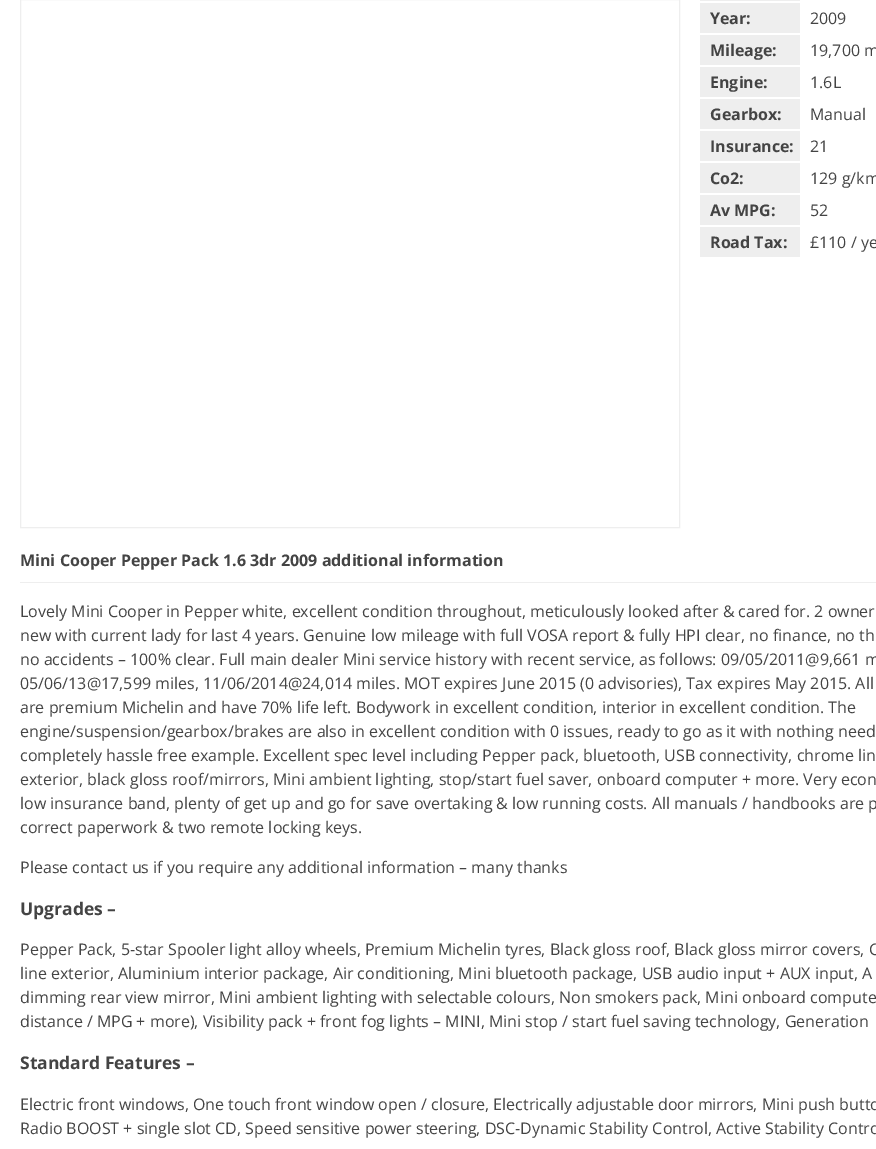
%!PS
<< /PageSize [876 1149] >> setpagedevice
/rgb { 3 { 255 div 3 1 roll } repeat setrgbcolor } def
/font { [ exch dup neg 0 0 3 -1 roll 0 0 ] selectfont } def
/text { moveto show } def
0 1149 translate 1 -1 scale
4 setmiterlimit
255 255 255 rgb
0 0 876 1149 rectfill
238 238 238 rgb
20.5 -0.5 659 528 rectstroke
700 0 100 1 rectfill
700 3 100 30 rectfill
700 35 100 30 rectfill
700 67 100 30 rectfill
700 99 100 30 rectfill
700 131 100 30 rectfill
700 163 100 30 rectfill
700 195 100 30 rectfill
700 227 100 30 rectfill
20 582 856 1 rectfill
/OpenSans-Bold 16 font
68 68 68 rgb
(Year:) 710 24 text
/OpenSans-Regular 16 font
(2009) 810 24 text
/OpenSans-Bold 16 font
(Mileage:) 710 56 text
/OpenSans-Regular 16 font
(19,700 m) 810 56 text
/OpenSans-Bold 16 font
(Engine:) 710 88 text
/OpenSans-Regular 16 font
(1.6L) 810 88 text
/OpenSans-Bold 16 font
(Gearbox:) 710 120 text
/OpenSans-Regular 16 font
(Manual) 810 120 text
/OpenSans-Bold 16 font
(Insurance:) 710 152 text
/OpenSans-Regular 16 font
(21) 810 152 text
/OpenSans-Bold 16 font
(Co2:) 710 184 text
/OpenSans-Regular 16 font
(129 g/km) 810 184 text
/OpenSans-Bold 16 font
(Av MPG:) 710 216 text
/OpenSans-Regular 16 font
(52) 810 216 text
/OpenSans-Bold 16 font
(Road Tax:) 710 248 text
/OpenSans-Regular 16 font
(£110 / ye) 810 248 text
/OpenSans-Bold 16 font
(Mini Cooper Pepper Pack 1.6 3dr 2009 additional information) 20 566 text
/OpenSans-Regular 16 font
(Lovely Mini Cooper in Pepper white, excellent condition throughout, meticulously looked after & cared for. 2 owner) 20 617 text
(new with current lady for last 4 years. Genuine low mileage with full VOSA report & fully HPI clear, no finance, no th) 20 641 text
(no accidents – 100% clear. Full main dealer Mini service history with recent service, as follows: 09/05/2011@9,661 m) 20 665 text
(05/06/13@17,599 miles, 11/06/2014@24,014 miles. MOT expires June 2015 \(0 advisories\), Tax expires May 2015. All) 20 689 text
(are premium Michelin and have 70% life left. Bodywork in excellent condition, interior in excellent condition. The) 20 713 text
(engine/suspension/gearbox/brakes are also in excellent condition with 0 issues, ready to go as it with nothing need) 20 737 text
(completely hassle free example. Excellent spec level including Pepper pack, bluetooth, USB connectivity, chrome lin) 20 761 text
(exterior, black gloss roof/mirrors, Mini ambient lighting, stop/start fuel saver, onboard computer + more. Very econ) 20 785 text
(low insurance band, plenty of get up and go for save overtaking & low running costs. All manuals / handbooks are p) 20 809 text
(correct paperwork & two remote locking keys.) 20 833 text
(Please contact us if you require any additional information – many thanks) 20 873 text
/OpenSans-Bold 17.5 font
(Upgrades –) 20 915 text
/OpenSans-Regular 16 font
(Pepper Pack, 5-star Spooler light alloy wheels, Premium Michelin tyres, Black gloss roof, Black gloss mirror covers, C) 20 955 text
(line exterior, Aluminium interior package, Air conditioning, Mini bluetooth package, USB audio input + AUX input, A) 20 979 text
(dimming rear view mirror, Mini ambient lighting with selectable colours, Non smokers pack, Mini onboard compute) 20 1003 text
(distance / MPG + more\), Visibility pack + front fog lights – MINI, Mini stop / start fuel saving technology, Generation) 20 1027 text
/OpenSans-Bold 17.5 font
(Standard Features –) 20 1069 text
/OpenSans-Regular 16 font
(Electric front windows, One touch front window open / closure, Electrically adjustable door mirrors, Mini push butto) 20 1110 text
(Radio BOOST + single slot CD, Speed sensitive power steering, DSC-Dynamic Stability Control, Active Stability Contro) 20 1134 text
showpage
